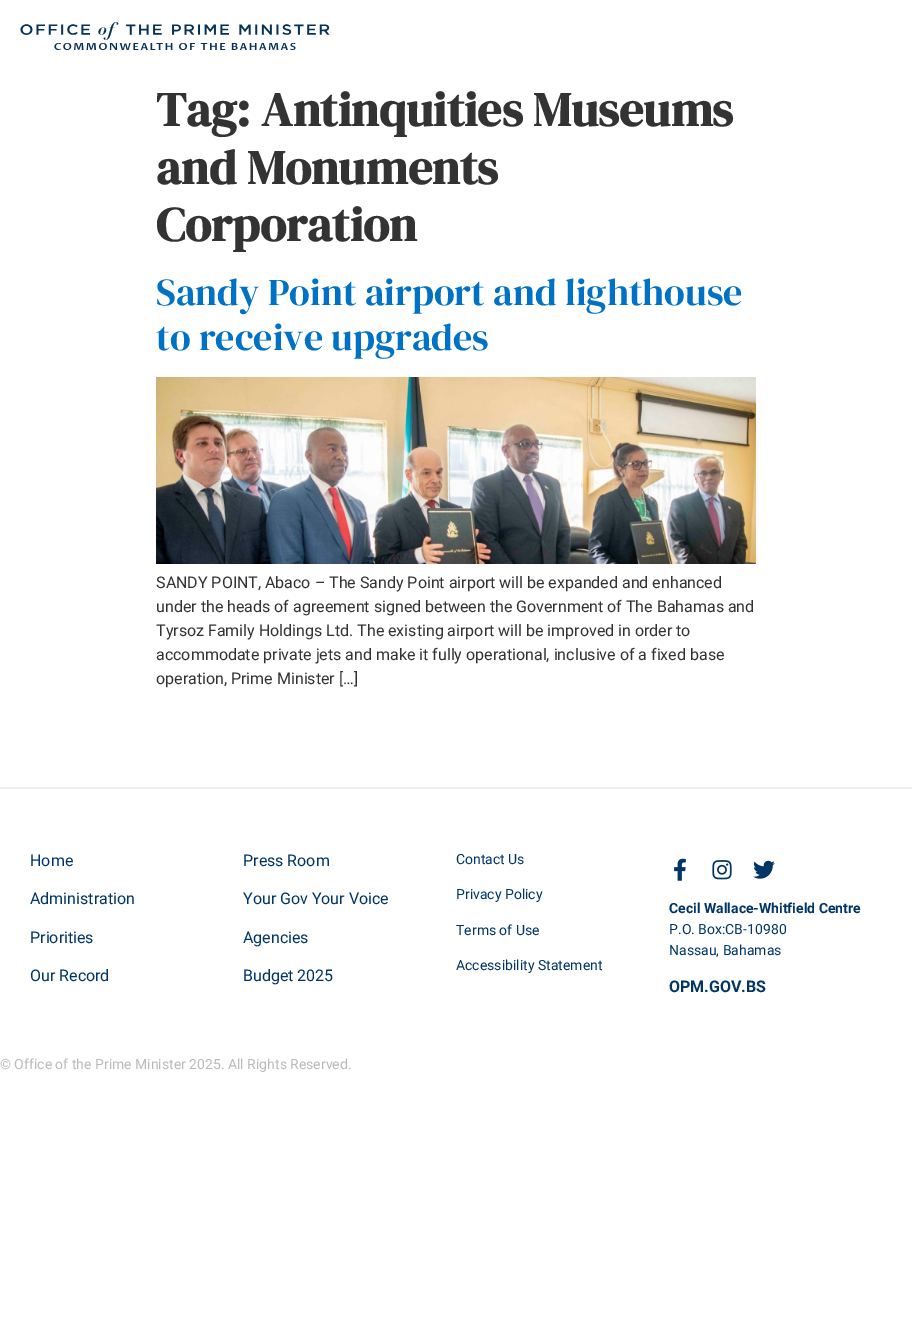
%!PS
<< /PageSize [912 1334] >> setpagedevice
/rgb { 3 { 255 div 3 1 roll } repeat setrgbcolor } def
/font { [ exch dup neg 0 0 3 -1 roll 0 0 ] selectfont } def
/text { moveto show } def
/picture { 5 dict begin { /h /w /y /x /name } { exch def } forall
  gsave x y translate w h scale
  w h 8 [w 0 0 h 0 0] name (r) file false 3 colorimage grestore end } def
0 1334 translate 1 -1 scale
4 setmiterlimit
255 255 255 rgb
0 0 912 1334 rectfill
(img_01.rgb) 20 22 310 28 picture
(img_02.rgb) 156 377 600 187 picture
236 241 249 rgb
0 787 912 2 rectfill
(img_03.rgb) 674 858 12 23 picture
(img_04.rgb) 712 860 20 20 picture
(img_05.rgb) 753 860 22 19 picture
/DMSerifDisplay-Bold 48 font
51 51 51 rgb
(Tag: Antinquities Museums) 156 126 text
(and Monuments) 156 184 text
(Corporation) 156 241 text
/DMSerifDisplay-Regular 38 font
0 114 198 rgb
(Sandy Point airport and lighthouse) 156 305 text
(to receive upgrades) 156 350 text
/Roboto-Regular 16 font
51 51 51 rgb
(SANDY POINT, Abaco – The Sandy Point airport will be expanded and enhanced) 156 588 text
(under the heads of agreement signed between the Government of The Bahamas and) 156 612 text
(Tyrsoz Family Holdings Ltd. The existing airport will be improved in order to) 156 636 text
(accommodate private jets and make it fully operational, inclusive of a fixed base) 156 660 text
(operation, Prime Minister […]) 156 684 text
0 53 102 rgb
(Home) 30 866 text
(Administration) 30 904 text
(Priorities) 30 943 text
(Our Record) 30 981 text
(Press Room) 243 866 text
(Your Gov Your Voice) 243 904 text
(Agencies) 243 943 text
(Budget 2025) 243 981 text
/Roboto-Regular 14 font
(Contact Us) 456 864 text
(Privacy Policy) 456 899 text
(Terms of Use) 456 935 text
(Accessibility Statement) 456 970 text
/Roboto-Bold 14 font
(Cecil Wallace-Whitfield Centre) 669 913 text
/Roboto-Regular 14 font
(P.O. Box:CB-10980) 669 934 text
(Nassau, Bahamas) 669 955 text
/Roboto-Bold 16 font
(OPM.GOV.BS) 669 992 text
/Roboto-Regular 14 font
186 186 186 rgb
(© Office of the Prime Minister 2025. All Rights Reserved.) 0 1069 text
showpage
